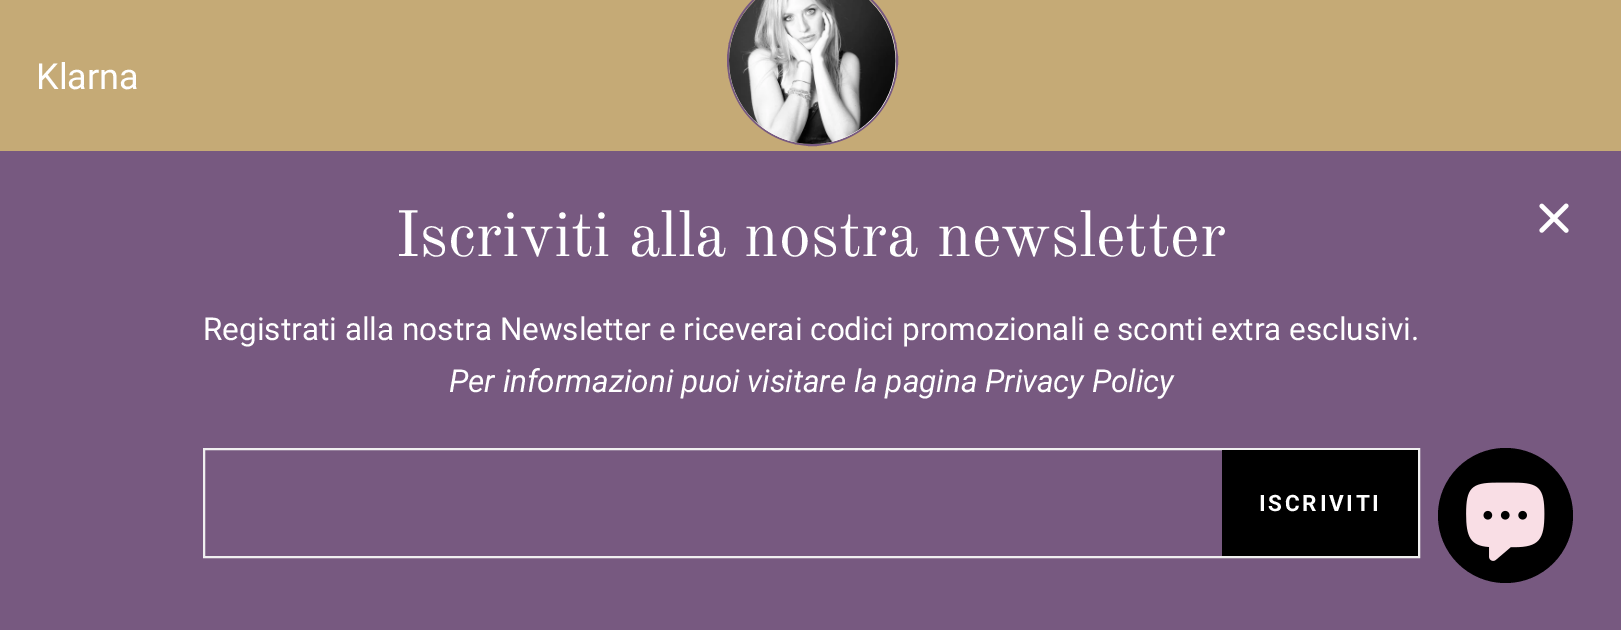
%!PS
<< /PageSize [1621 630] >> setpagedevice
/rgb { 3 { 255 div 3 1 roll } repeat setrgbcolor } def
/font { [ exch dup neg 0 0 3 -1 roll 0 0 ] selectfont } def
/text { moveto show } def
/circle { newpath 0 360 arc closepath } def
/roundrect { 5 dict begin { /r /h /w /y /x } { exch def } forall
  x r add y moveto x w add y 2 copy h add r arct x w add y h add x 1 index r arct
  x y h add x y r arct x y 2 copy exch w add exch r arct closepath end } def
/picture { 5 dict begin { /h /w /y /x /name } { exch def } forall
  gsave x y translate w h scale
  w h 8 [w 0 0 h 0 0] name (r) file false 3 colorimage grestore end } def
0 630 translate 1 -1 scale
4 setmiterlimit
197 170 118 rgb
0 0 1621 630 rectfill
119 89 128 rgb
0 151 1621 479 rectfill
2 setlinewidth
812.5 60.5 84.5 circle stroke
255 255 255 rgb
729 -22 167 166 83 roundrect fill
(img_01.rgb) 729 0 167 144 picture
240 240 240 rgb
204 449 1215 108 rectstroke
0 0 0 rgb
1222 450 196 106 rectfill
(img_02.rgb) 1539 203 30 30 picture
1505.5 515.5 67.5 circle fill
(img_03.rgb) 1466 482 79 79 picture
/Roboto-Regular 36 font
255 255 255 rgb
(Klarna) 36 89 text
/OldStandardTT-Regular 64.1 font
(Iscriviti alla nostra newsletter) 395 256 text
/Roboto-Regular 31.5 font
(Registrati alla nostra Newsletter e riceverai codici promozionali e sconti extra esclusivi.) 203 340 text
/Roboto-Italic 31.5 font
(Per informazioni puoi visitare la pagina Privacy Policy) 449 392 text
/Roboto-Bold 22.5 font
1259 511 moveto 2.75 0 (ISCRIVITI) ashow
showpage
